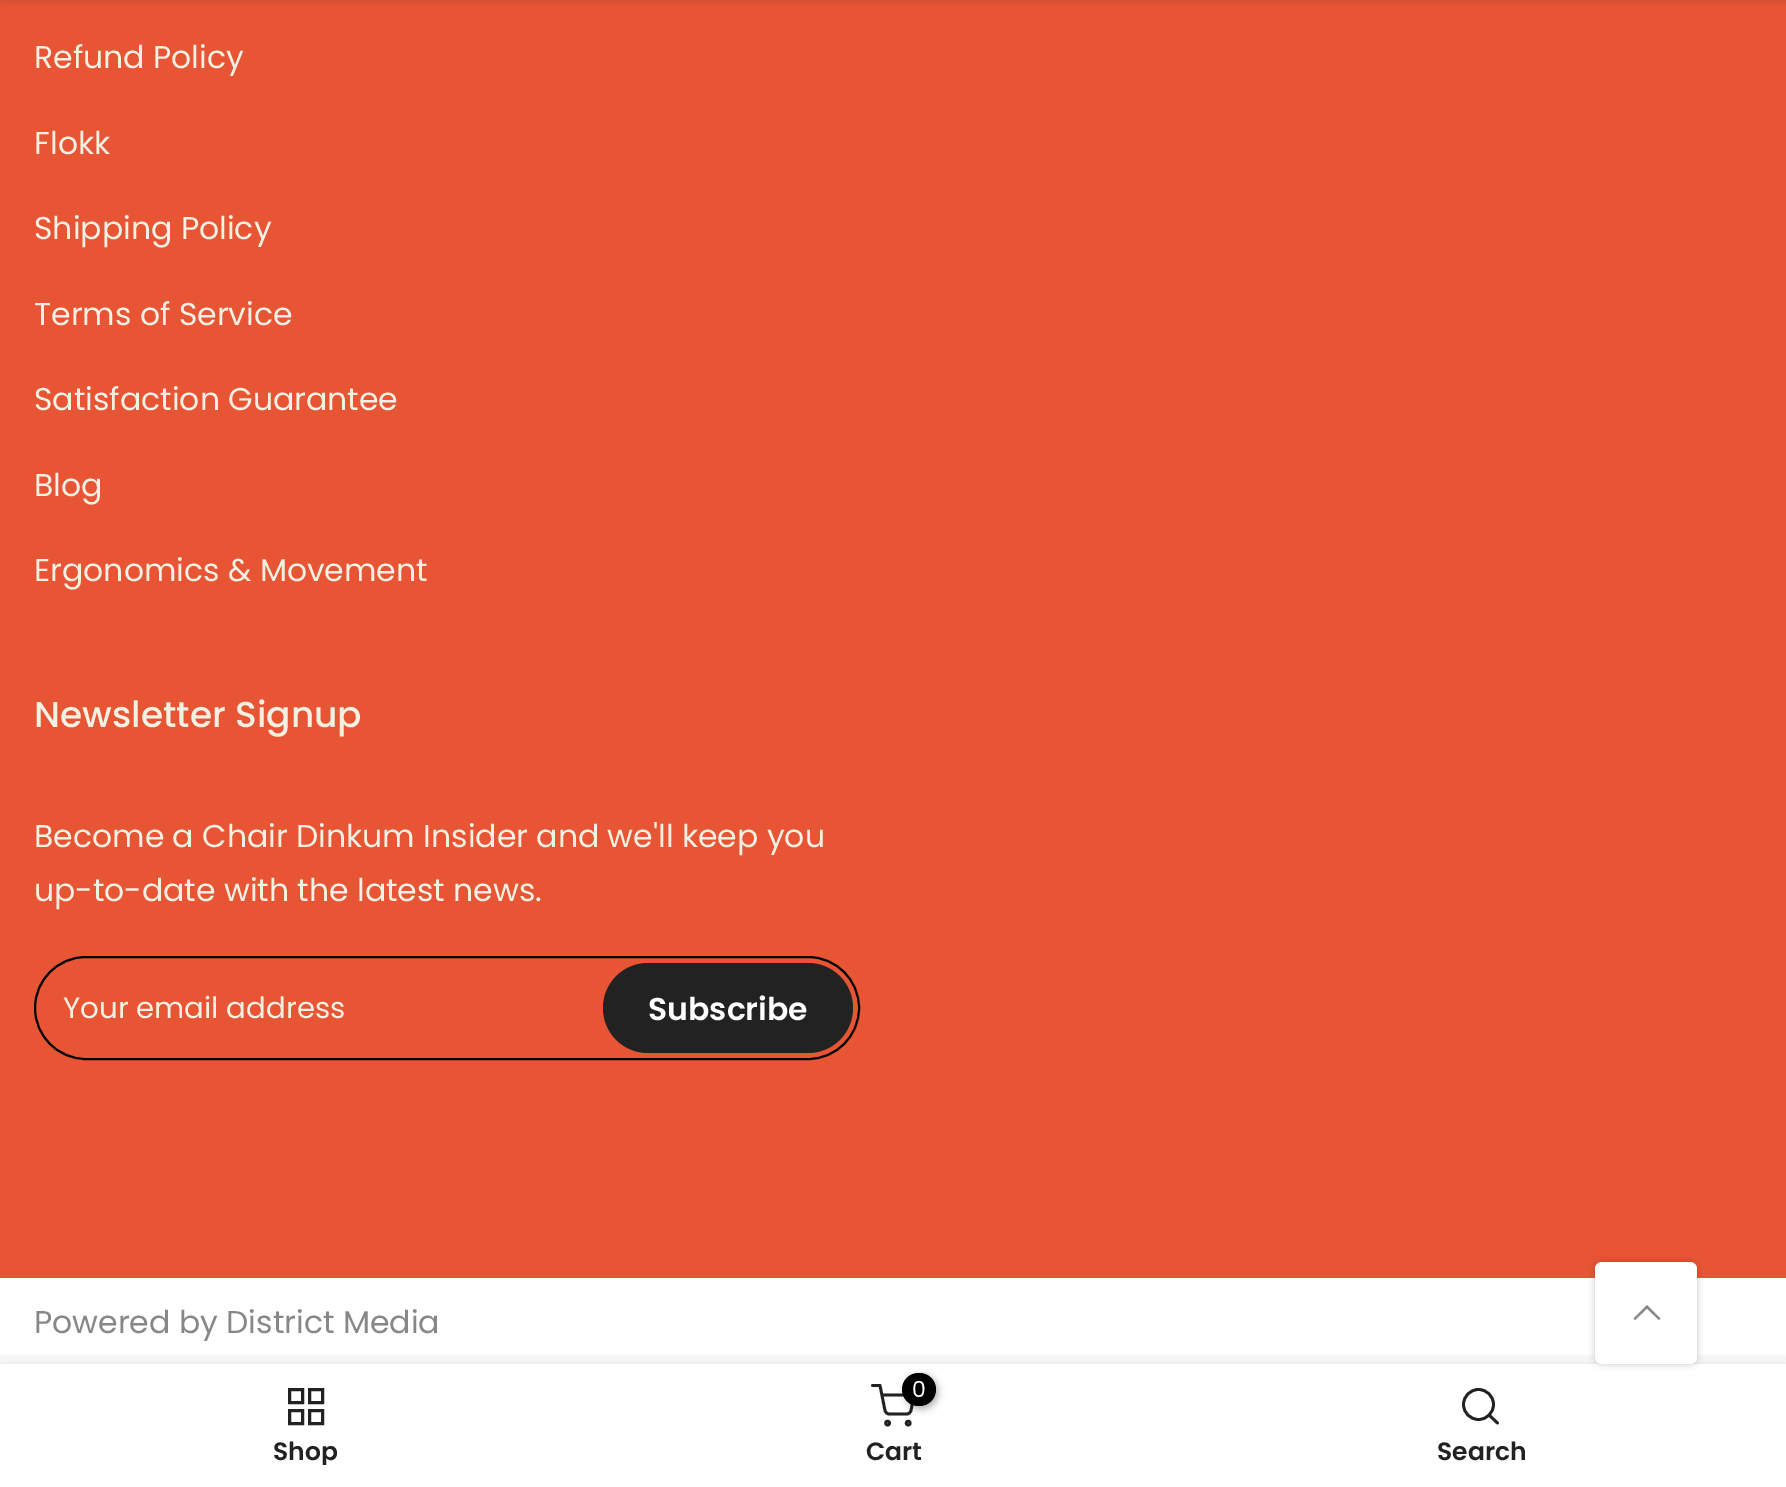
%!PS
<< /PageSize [1786 1487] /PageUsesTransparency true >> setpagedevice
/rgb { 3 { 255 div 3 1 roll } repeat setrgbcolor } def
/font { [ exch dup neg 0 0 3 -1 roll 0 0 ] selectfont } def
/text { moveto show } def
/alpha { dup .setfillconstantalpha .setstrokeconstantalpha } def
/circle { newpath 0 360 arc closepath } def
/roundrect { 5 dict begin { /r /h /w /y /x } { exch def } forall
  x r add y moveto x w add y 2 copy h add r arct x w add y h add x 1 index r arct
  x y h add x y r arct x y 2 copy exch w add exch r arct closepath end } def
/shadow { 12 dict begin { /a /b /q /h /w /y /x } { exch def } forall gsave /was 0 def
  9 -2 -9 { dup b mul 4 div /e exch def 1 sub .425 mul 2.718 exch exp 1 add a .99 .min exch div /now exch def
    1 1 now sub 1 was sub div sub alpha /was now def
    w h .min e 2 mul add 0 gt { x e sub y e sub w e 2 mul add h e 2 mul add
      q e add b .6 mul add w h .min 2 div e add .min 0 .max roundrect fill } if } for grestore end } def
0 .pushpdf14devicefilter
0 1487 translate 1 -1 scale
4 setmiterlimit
255 255 255 rgb
0 0 1786 1487 rectfill
232 85 52 rgb
0 0 1786 1278 rectfill
0 0 0 rgb
0 -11 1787 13 0 3.5 0.1 shadow
2 setlinewidth
35 957 824 102 51 roundrect stroke
34 34 34 rgb
603 963 250 90 45 roundrect fill
0 0 0 rgb
1595 1262 102 102 7 3.5 0.2 shadow
gsave
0 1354 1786 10 rectclip
0 1364 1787 123 0 10 0.12 shadow
grestore
255 255 255 rgb
1595 1262 102 102 7 roundrect fill
135 135 135 rgb
1648.5 1306.5 moveto -1.5 -1.5 rlineto -13.5 13.5 rlineto 1.5 1.5 rlineto 12 -11.5 rlineto 12 11.5 rlineto 1.5 -1.5 rlineto -7 -7 rlineto closepath fill
34 34 34 rgb
3 setlinewidth
289.5 1389.5 13 13 rectstroke
309.5 1389.5 13 13 rectstroke
289.5 1410.5 13 13 rectstroke
309.5 1410.5 13 13 rectstroke
2.8 setlinewidth
1 setlinecap
1 setlinejoin
872.5 1385.5 moveto 7.5 0 rlineto 5 25 rlineto 0.5 2 2 3.5 4 3.5 rcurveto 18 0 rlineto 2 0 3.5 -1.5 4 -3.5 rcurveto 3 -15.5 rlineto -32 0 rlineto stroke
0 setlinecap
0 setlinejoin
908.2 1423.1 1.9 circle stroke
0 0 0 rgb
905 1375 33 34 16.5 3.5 0.3 shadow
902 1373 34 33 16.5 roundrect fill
34 34 34 rgb
887.6 1423.1 1.9 circle stroke
1478.5 1404.5 15 circle stroke
1 setlinecap
1 setlinejoin
1497.5 1423 moveto -8.5 -8 rlineto stroke
/Poppins-Regular 31.5 font
243 241 228 rgb
(Refund Policy) 34 68 text
(Flokk) 34 154 text
(Shipping Policy) 34 239 text
(Terms of Service) 34 325 text
(Satisfaction Guarantee) 34 410 text
(Blog) 34 496 text
(Ergonomics & Movement) 34 581 text
/Poppins-Medium 36 font
(Newsletter Signup) 34 727 text
/Poppins-Regular 31.5 font
(Become a Chair Dinkum Insider and we'll keep you) 34 847 text
(up-to-date with the latest news.) 34 901 text
/Poppins-Regular 29.25 font
(Your email address) 63 1018 text
/Poppins-SemiBold 31.5 font
255 255 255 rgb
(Subscribe) 648 1020 text
/Poppins-Regular 31.5 font
135 135 135 rgb
(Powered by District Media) 34 1333 text
gsave
34 1440 542 25 rectclip
/Poppins-SemiBold 25 font
34 34 34 rgb
(Shop) 273 1460 text
grestore
/Poppins-Regular 22 font
255 255 255 rgb
(0) 912 1397 text
/Poppins-SemiBold 25 font
34 34 34 rgb
(Cart) 866 1460 text
(Search) 1437 1460 text
.poppdf14devicefilter showpage
